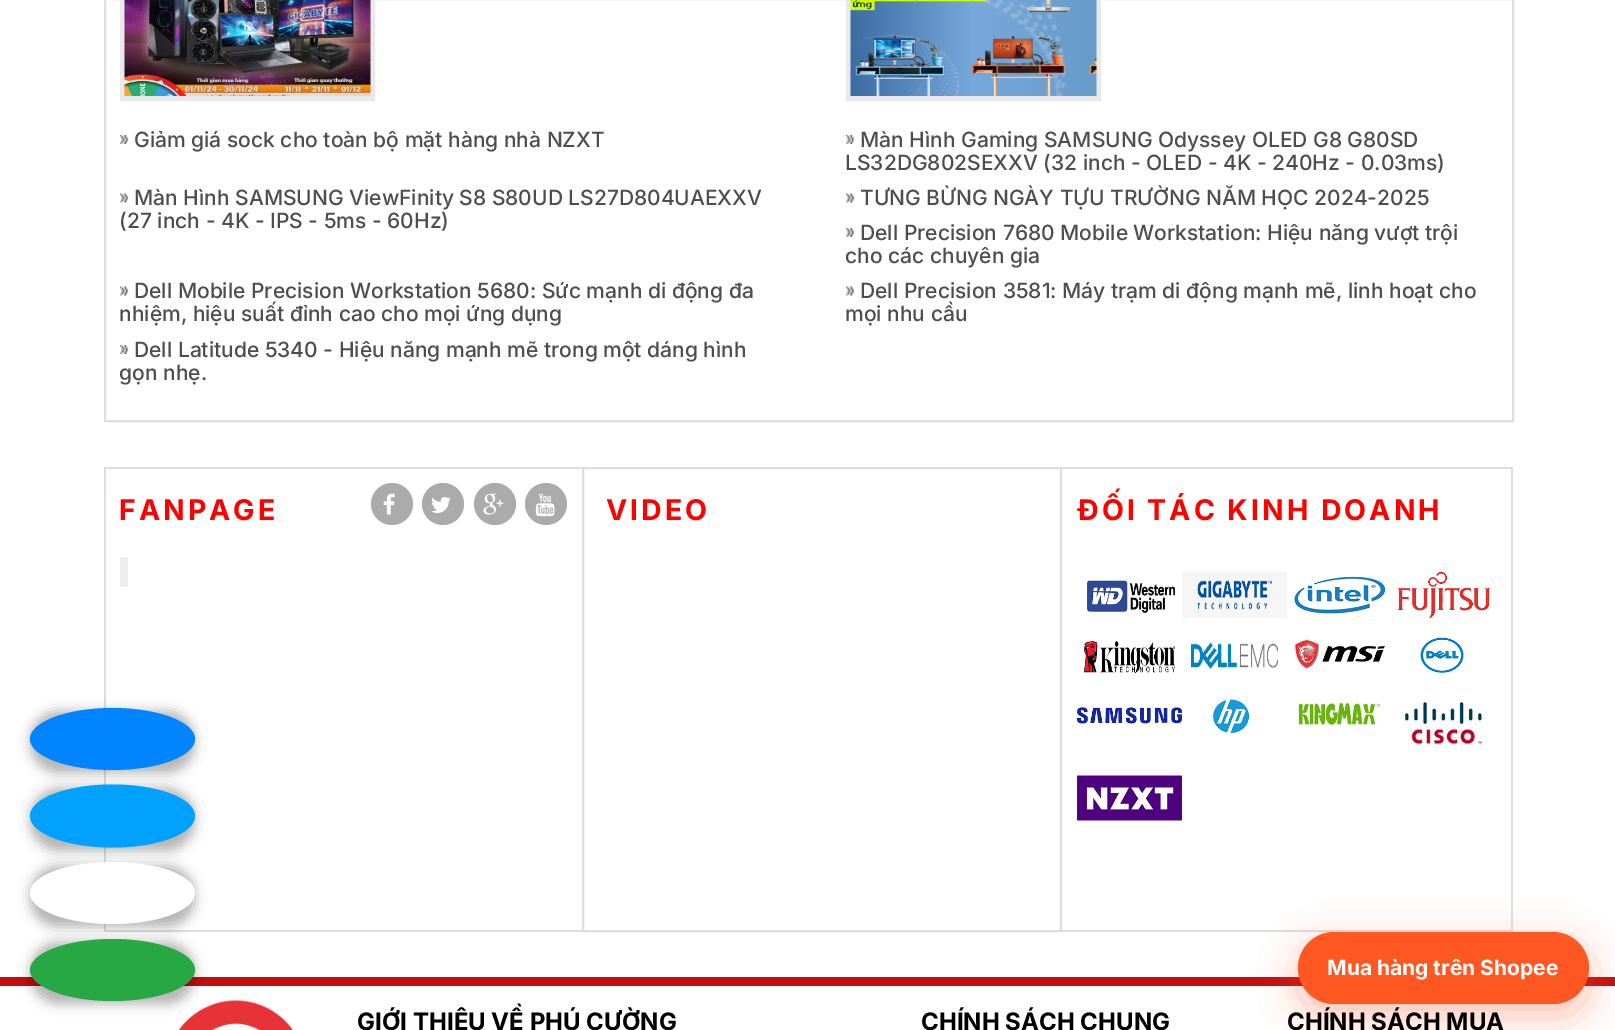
%!PS
<< /PageSize [1615 1030] /PageUsesTransparency true >> setpagedevice
/rgb { 3 { 255 div 3 1 roll } repeat setrgbcolor } def
/font { [ exch dup neg 0 0 3 -1 roll 0 0 ] selectfont } def
/text { moveto show } def
/alpha { dup .setfillconstantalpha .setstrokeconstantalpha } def
/circle { newpath 0 360 arc closepath } def
/roundrect { 5 dict begin { /r /h /w /y /x } { exch def } forall
  x r add y moveto x w add y 2 copy h add r arct x w add y h add x 1 index r arct
  x y h add x y r arct x y 2 copy exch w add exch r arct closepath end } def
/shadow { 12 dict begin { /a /b /q /h /w /y /x } { exch def } forall gsave /was 0 def
  9 -2 -9 { dup b mul 4 div /e exch def 1 sub .425 mul 2.718 exch exp 1 add a .99 .min exch div /now exch def
    1 1 now sub 1 was sub div sub alpha /was now def
    w h .min e 2 mul add 0 gt { x e sub y e sub w e 2 mul add h e 2 mul add
      q e add b .6 mul add w h .min 2 div e add .min 0 .max roundrect fill } if } for grestore end } def
/picture { 5 dict begin { /h /w /y /x /name } { exch def } forall
  gsave x y translate w h scale
  w h 8 [w 0 0 h 0 0] name (r) file false 3 colorimage grestore end } def
0 .pushpdf14devicefilter
0 1030 translate 1 -1 scale
4 setmiterlimit
255 255 255 rgb
0 0 1615 1030 rectfill
222 222 222 rgb
2 setlinewidth
105 -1 1408 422 rectstroke
233 233 233 rgb
5 setlinewidth
122.5 -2.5 250 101 rectstroke
(img_01.rgb) 124 0 247 96 picture
848.5 -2.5 250 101 rectstroke
(img_02.rgb) 850 0 247 96 picture
(img_03.rgb) 120 135 9 9 picture
(img_03.rgb) 846 135 9 9 picture
(img_04.rgb) 120 193 9 10 picture
(img_04.rgb) 846 193 9 10 picture
(img_03.rgb) 846 228 9 9 picture
(img_04.rgb) 120 286 9 10 picture
(img_04.rgb) 846 286 9 10 picture
(img_03.rgb) 120 345 9 9 picture
222 222 222 rgb
104 467 478 2 rectfill
104 930 478 2 rectfill
104 467 2 465 rectfill
171 171 171 rgb
392 504 21 circle fill
(img_05.rgb) 383 493 12 22 picture
443 504 21 circle fill
(img_06.rgb) 431 497 20 16 picture
495 504 21 circle fill
(img_07.rgb) 483 493 21 22 picture
546 504 21 circle fill
(img_08.rgb) 535 493 20 24 picture
238 238 238 rgb
120 557 8 30 rectfill
222 222 222 rgb
2 setlinewidth
583 468 478 463 rectstroke
1062 467 450 2 rectfill
1511 467 2 465 rectfill
1062 930 450 2 rectfill
(img_09.rgb) 1087 580 88 33 picture
(img_10.rgb) 1182 571 105 47 picture
(img_11.rgb) 1294 576 93 38 picture
(img_12.rgb) 1397 571 93 47 picture
(img_13.rgb) 1084 641 91 33 picture
(img_14.rgb) 1191 642 87 28 picture
(img_15.rgb) 1294 639 91 30 picture
(img_16.rgb) 1420 637 44 36 picture
(img_17.rgb) 1077 707 105 17 picture
(img_18.rgb) 1213 699 36 34 picture
(img_19.rgb) 1298 702 83 24 picture
(img_20.rgb) 1405 702 77 43 picture
(img_21.rgb) 1077 775 105 46 picture
0 0 0 rgb
30 711 165 62 31 6 0.3 shadow
0 132 255 rgb
112.5 708 moveto 45.5 0 82.5 14 82.5 31 rcurveto 0 17 -37 31 -82.5 31 rcurveto -45.5 0 -82.5 -14 -82.5 -31 rcurveto 0 -17 37 -31 82.5 -31 rcurveto closepath fill
0 0 0 rgb
30 788 165 63 31.5 6 0.3 shadow
0 161 255 rgb
112.5 784.5 moveto 45.5 0 82.5 14 82.5 31.5 rcurveto 0 17.5 -37 31.5 -82.5 31.5 rcurveto -45.5 0 -82.5 -14 -82.5 -31.5 rcurveto 0 -17.5 37 -31.5 82.5 -31.5 rcurveto closepath fill
0 0 0 rgb
30 866 165 61 30.5 6 0.3 shadow
255 255 255 rgb
112.5 862 moveto 45.5 0 82.5 14 82.5 31 rcurveto 0 17 -37 31 -82.5 31 rcurveto -45.5 0 -82.5 -14 -82.5 -31 rcurveto 0 -17 37 -31 82.5 -31 rcurveto closepath fill
195 13 17 rgb
0 977 1615 9 rectfill
(img_22.rgb) 178 1000 116 30 picture
0 0 0 rgb
30 942 165 62 31 6 0.3 shadow
40 167 69 rgb
112.5 939 moveto 45.5 0 82.5 14 82.5 31 rcurveto 0 17 -37 31 -82.5 31 rcurveto -45.5 0 -82.5 -14 -82.5 -31 rcurveto 0 -17 37 -31 82.5 -31 rcurveto closepath fill
255 87 34 rgb
1298 944 291 72 36 19.5 0.35 shadow
1298 932 291 72 36 roundrect fill
/Inter-Medium 21 font
77 77 77 rgb
(Giảm giá sock cho toàn bộ mặt hàng nhà NZXT) 134 147 text
(Màn Hình Gaming SAMSUNG Odyssey OLED G8 G80SD) 860 147 text
(LS32DG802SEXXV \(32 inch - OLED - 4K - 240Hz - 0.03ms\)) 845 170 text
(Màn Hình SAMSUNG ViewFinity S8 S80UD LS27D804UAEXXV) 134 205 text
(\(27 inch - 4K - IPS - 5ms - 60Hz\)) 119 228 text
(TƯNG BỪNG NGÀY TỰU TRƯỜNG NĂM HỌC 2024-2025) 860 205 text
(Dell Precision 7680 Mobile Workstation: Hiệu năng vượt trội) 860 240 text
(cho các chuyên gia) 845 263 text
(Dell Mobile Precision Workstation 5680: Sức mạnh di động đa) 134 298 text
(nhiệm, hiệu suất đỉnh cao cho mọi ứng dụng) 119 321 text
(Dell Precision 3581: Máy trạm di động mạnh mẽ, linh hoạt cho) 860 298 text
(mọi nhu cầu) 845 321 text
(Dell Latitude 5340 - Hiệu năng mạnh mẽ trong một dáng hình) 134 357 text
(gọn nhẹ.) 119 380 text
/Inter-Bold 28.5 font
255 0 0 rgb
119 520 moveto 3 0 (FANPAGE) ashow
606 520 moveto 3 0 (VIDEO) ashow
1077 520 moveto 3 0 (ĐỐI TÁC KINH DOANH) ashow
/Inter-Bold 21 font
255 255 255 rgb
(Mua hàng trên Shopee) 1327 975 text
/Inter-Bold 24 font
0 0 0 rgb
(GIỚI THIỆU VỀ PHÚ CƯỜNG) 357 1030 text
(CHÍNH SÁCH CHUNG) 921 1030 text
(CHÍNH SÁCH MUA) 1287 1030 text
.poppdf14devicefilter showpage
